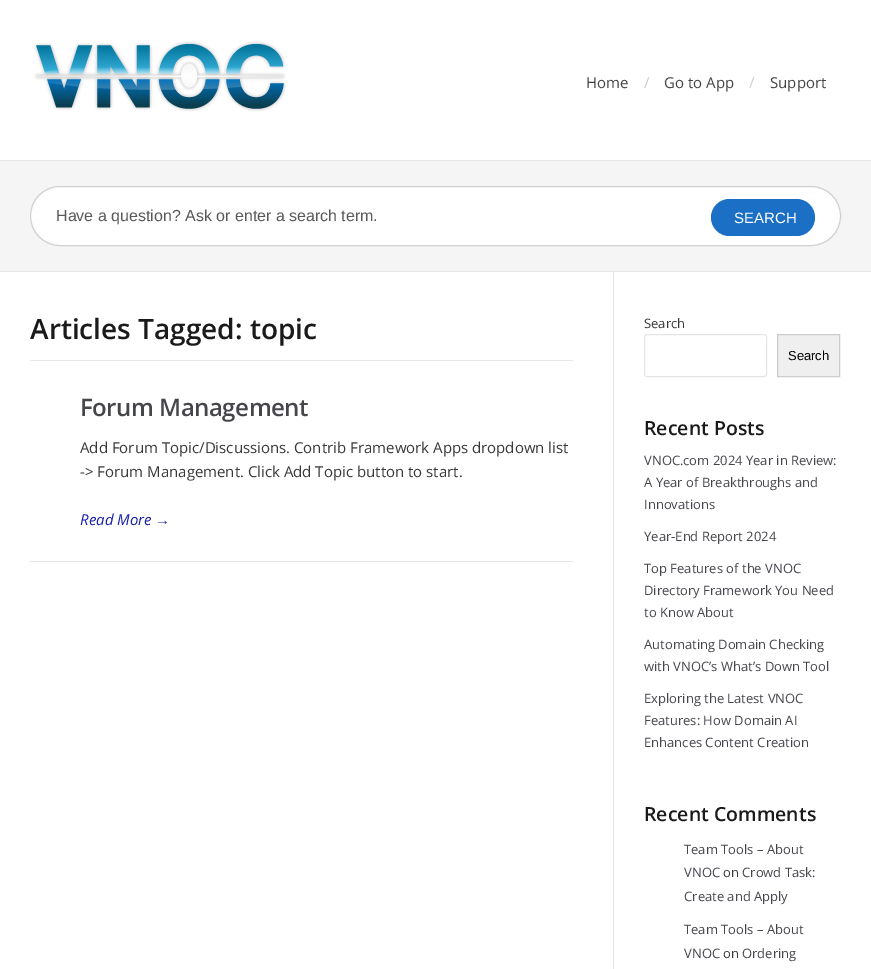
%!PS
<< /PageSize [871 969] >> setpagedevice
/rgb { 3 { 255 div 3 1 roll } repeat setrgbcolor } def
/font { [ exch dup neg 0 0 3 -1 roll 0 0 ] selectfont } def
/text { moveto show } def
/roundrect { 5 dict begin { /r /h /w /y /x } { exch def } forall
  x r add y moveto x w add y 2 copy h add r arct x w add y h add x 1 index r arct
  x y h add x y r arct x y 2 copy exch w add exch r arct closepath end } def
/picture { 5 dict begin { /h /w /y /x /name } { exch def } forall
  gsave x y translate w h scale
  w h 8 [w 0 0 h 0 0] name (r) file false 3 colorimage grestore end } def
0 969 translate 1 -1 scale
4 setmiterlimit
255 255 255 rgb
0 0 871 969 rectfill
(img_01.rgb) 34 41 252 71 picture
245 245 245 rgb
0 161 871 110 rectfill
232 232 232 rgb
0 160 871 1 rectfill
0 271 871 1 rectfill
255 255 255 rgb
30.5 186.5 810 59 29.5 roundrect gsave fill grestore
209 209 209 rgb
stroke
27 111 196 rgb
711 199 104 37 18.5 roundrect fill
230 230 230 rgb
30 360 543 1 rectfill
30 561 543 1 rectfill
613 272 1 697 rectfill
229 229 229 rgb
644.5 334.5 122 42 2.5 roundrect stroke
239 239 239 rgb
777.5 334.5 moveto 62 0 rlineto 0 42 rlineto -62 0 rlineto closepath gsave fill grestore
204 204 204 rgb
stroke
/OpenSans-Regular 15 font
68 68 68 rgb
(Home) 586 88 text
204 204 204 rgb
(/) 644 88 text
68 68 68 rgb
(Go to App) 664 88 text
204 204 204 rgb
(/) 749 88 text
68 68 68 rgb
(Support) 770 88 text
/LiberationSans-Regular 16 font
89 89 89 rgb
(Have a question? Ask or enter a search term.) 56 221 text
/LiberationSans-Regular 15 font
255 255 255 rgb
(SEARCH) 734 223 text
/OpenSans-SemiBold 28 font
26 26 26 rgb
(Articles Tagged: topic) 30 339 text
/OpenSans-SemiBold 24 font
69 69 76 rgb
80 416 moveto -0.5 0 (Forum Management) ashow
/OpenSans-Regular 15 font
56 56 56 rgb
(Add Forum Topic/Discussions. Contrib Framework Apps dropdown list) 80 453 text
(-> Forum Management. Click Add Topic button to start.) 80 477 text
/OpenSans-Italic 15 font
23 31 170 rgb
(Read More) 80 525 text
/LiberationSans-Italic 15 font
(→) 155 525 text
/OpenSans-Regular 13 font
56 56 56 rgb
(Search) 644 328 text
/LiberationSans-Regular 13 font
0 0 0 rgb
(Search) 788 360 text
/OpenSans-SemiBold 19.5 font
26 26 26 rgb
(Recent Posts) 644 435 text
/OpenSans-Regular 13 font
69 69 76 rgb
(VNOC.com 2024 Year in Review:) 644 465 text
(A Year of Breakthroughs and) 644 487 text
(Innovations) 644 509 text
(Year-End Report 2024) 644 541 text
(Top Features of the VNOC) 644 573 text
(Directory Framework You Need) 644 595 text
(to Know About) 644 617 text
(Automating Domain Checking) 644 649 text
(with VNOC’s What’s Down Tool) 644 671 text
(Exploring the Latest VNOC) 644 703 text
(Features: How Domain AI) 644 725 text
(Enhances Content Creation) 644 747 text
/OpenSans-SemiBold 19.5 font
26 26 26 rgb
(Recent Comments) 644 821 text
/OpenSans-Regular 13 font
69 69 76 rgb
(Team Tools – About) 684 854 text
(VNOC) 684 877 text
56 56 56 rgb
(on) 723 877 text
69 69 76 rgb
(Crowd Task:) 742 877 text
(Create and Apply) 684 901 text
(Team Tools – About) 684 934 text
(VNOC) 684 958 text
56 56 56 rgb
(on) 723 958 text
69 69 76 rgb
(Ordering) 742 958 text
showpage
